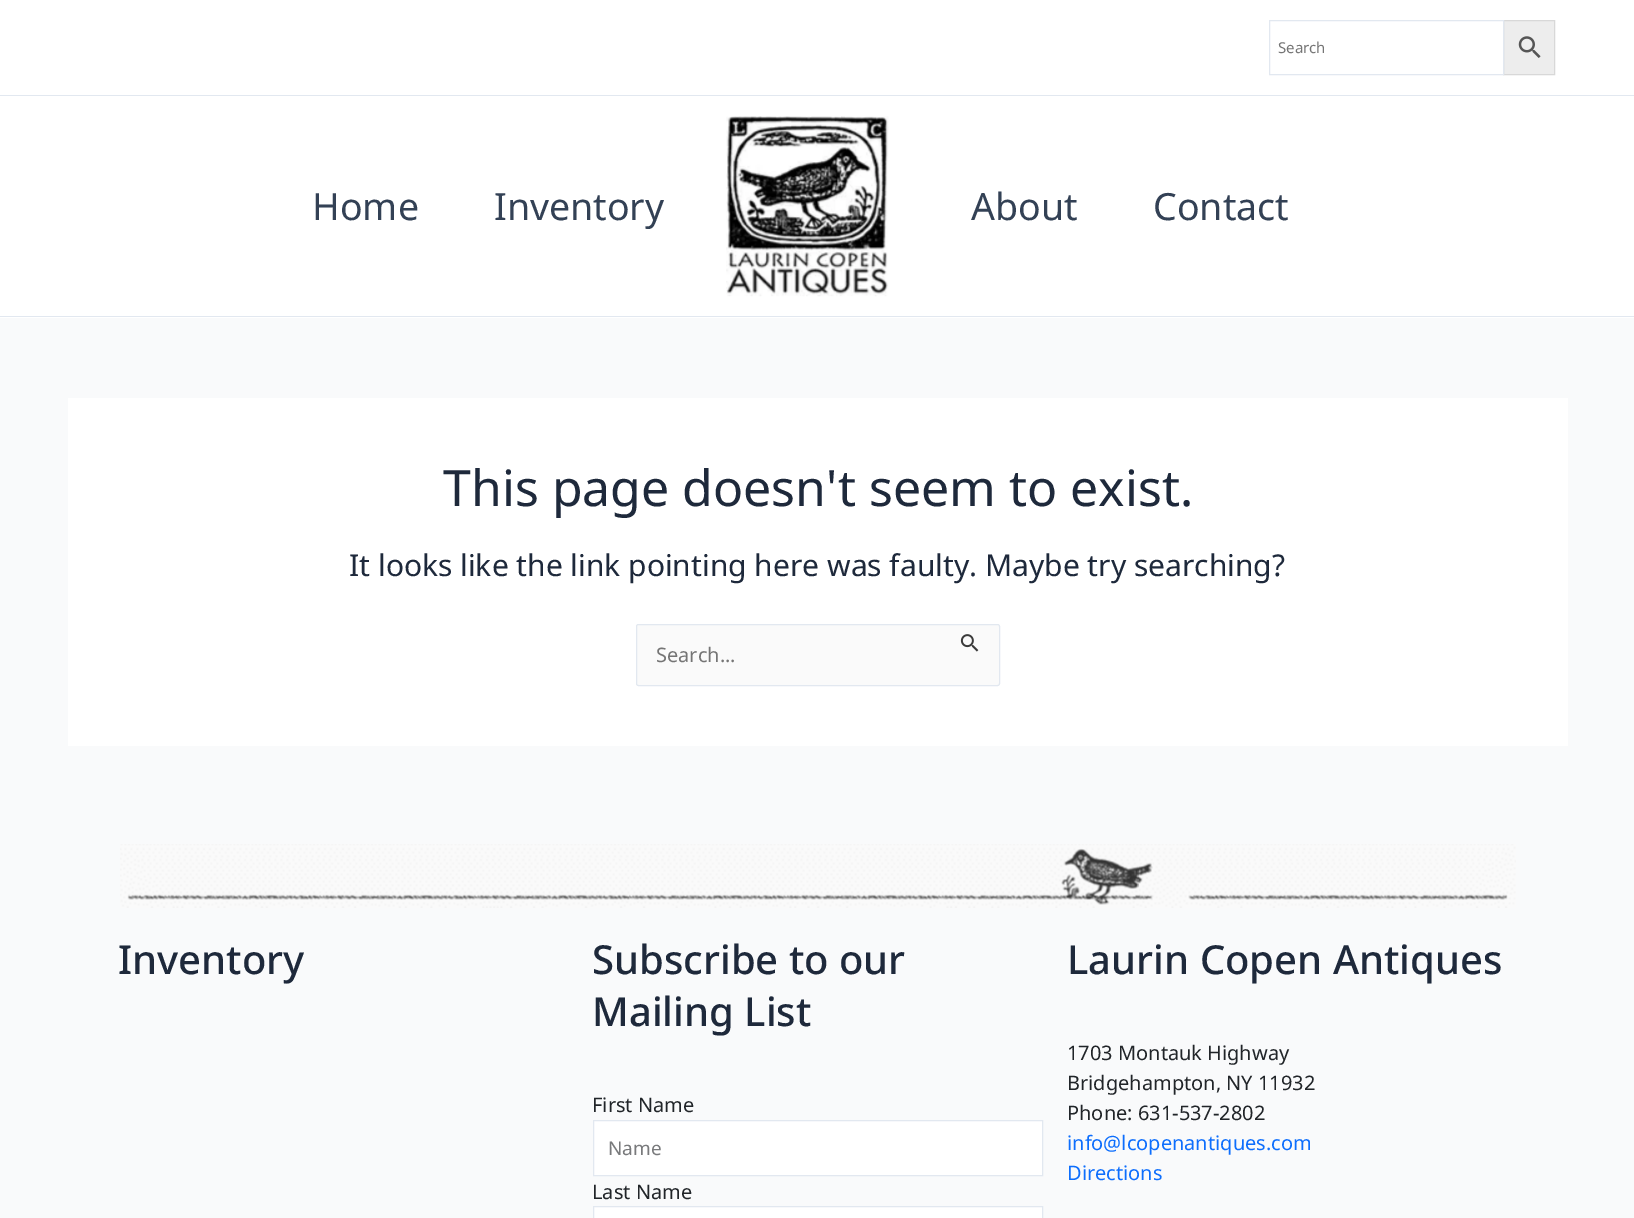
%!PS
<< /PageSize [1634 1218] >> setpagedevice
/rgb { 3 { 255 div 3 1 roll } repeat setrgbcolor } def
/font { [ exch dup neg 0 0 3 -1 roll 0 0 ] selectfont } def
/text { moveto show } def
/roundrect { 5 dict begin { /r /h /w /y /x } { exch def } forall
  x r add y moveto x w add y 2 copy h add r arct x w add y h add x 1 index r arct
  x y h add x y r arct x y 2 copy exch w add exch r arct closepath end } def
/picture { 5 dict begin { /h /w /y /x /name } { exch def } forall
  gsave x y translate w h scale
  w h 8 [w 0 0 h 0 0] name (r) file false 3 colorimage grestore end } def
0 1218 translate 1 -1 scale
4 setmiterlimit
249 250 251 rgb
0 0 1634 1218 rectfill
255 255 255 rgb
0 0 1634 95 rectfill
226 232 240 rgb
0 95 1634 1 rectfill
237 237 237 rgb
1503.5 20.5 moveto 51 0 rlineto 0 54 rlineto -51 0 rlineto closepath gsave fill grestore
216 216 216 rgb
stroke
226 232 240 rgb
1269.5 20.5 234 54 rectstroke
(img_01.rgb) 1518 36 23 22 picture
255 255 255 rgb
0 96 1634 222 rectfill
226 232 240 rgb
0 316 1634 1 rectfill
(img_02.rgb) 726 116 163 181 picture
255 255 255 rgb
68 398 1500 348 rectfill
250 250 250 rgb
636.5 624.5 363 61 2 roundrect gsave fill grestore
226 232 240 rgb
stroke
(img_03.rgb) 960 634 19 18 picture
(img_04.rgb) 120 844 1396 64 picture
255 255 255 rgb
593.5 1120.5 moveto 449 0 rlineto 0 55 rlineto -449 0 rlineto closepath gsave fill grestore
226 232 240 rgb
stroke
255 255 255 rgb
593.5 1206.5 moveto 449 0 rlineto 0 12 rlineto -449 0 rlineto closepath gsave fill grestore
226 232 240 rgb
stroke
/NotoSans-Regular 15 font
117 117 117 rgb
(Search) 1278 53 text
/NotoSans-Regular 37.5 font
51 65 85 rgb
(Home) 312 220 text
(Inventory) 494 220 text
(About) 971 220 text
(Contact) 1153 220 text
/NotoSans-Regular 50 font
30 41 59 rgb
(This page doesn't seem to exist.) 443 506 text
/NotoSans-Regular 30 font
(It looks like the link pointing here was faulty. Maybe try searching?) 349 576 text
/NotoSans-Regular 20 font
117 117 117 rgb
(Search...) 656 662 text
/NotoSans-Medium 40 font
30 41 59 rgb
(Inventory) 118 974 text
(Subscribe to our) 592 974 text
(Mailing List) 592 1026 text
/NotoSans-Regular 20 font
33 37 41 rgb
(First Name) 592 1112 text
/NotoSans-Regular 19 font
121 122 124 rgb
(Name) 608 1155 text
/NotoSans-Regular 20 font
33 37 41 rgb
(Last Name) 592 1199 text
/NotoSans-Medium 40 font
30 41 59 rgb
(Laurin Copen Antiques) 1067 974 text
/NotoSans-Regular 20 font
33 37 41 rgb
(1703 Montauk Highway) 1067 1060 text
(Bridgehampton, NY 11932) 1067 1090 text
(Phone: 631-537-2802) 1067 1120 text
13 110 253 rgb
(info@lcopenantiques.com) 1067 1150 text
(Directions) 1067 1180 text
showpage
